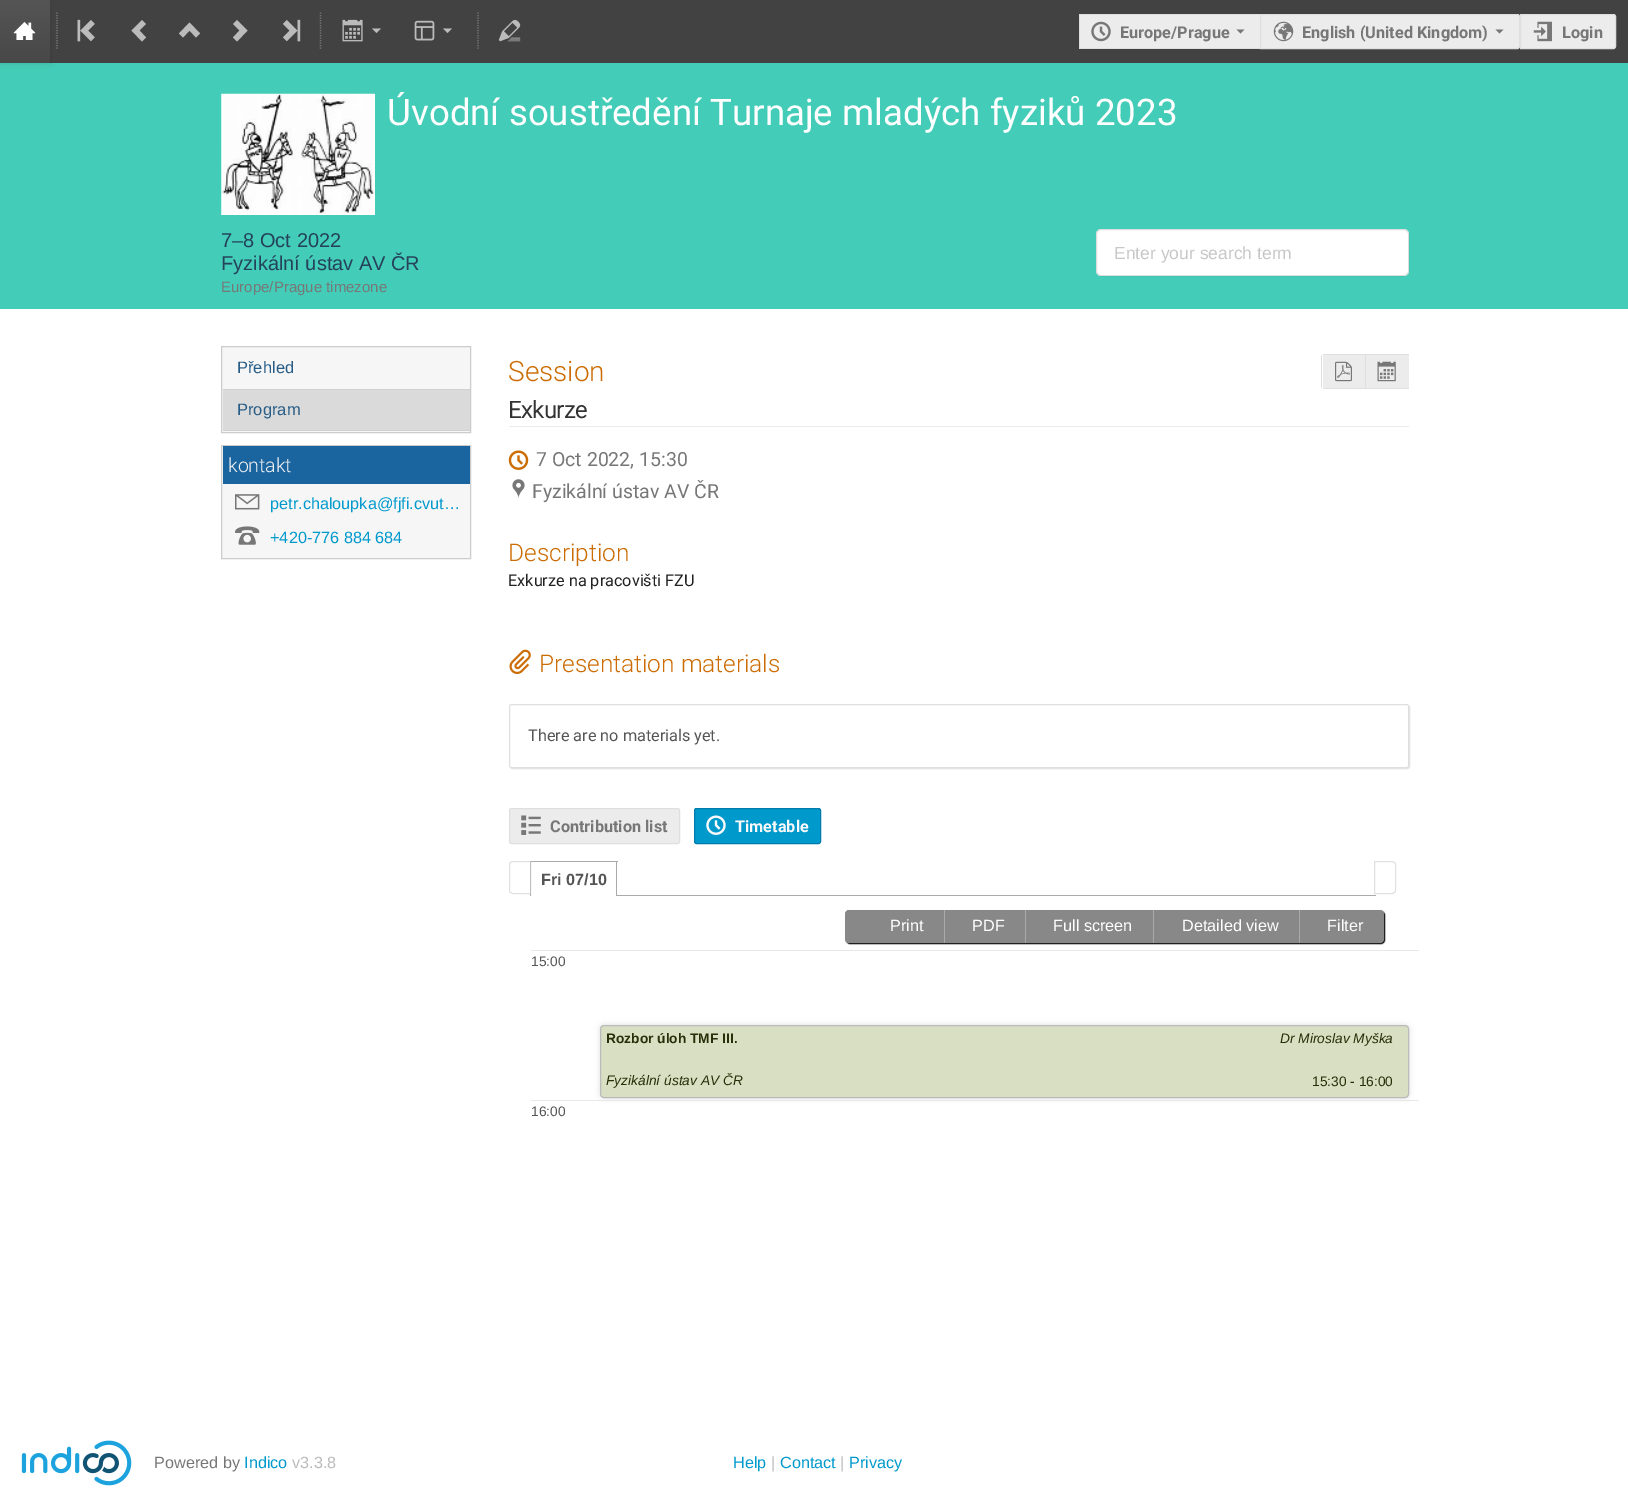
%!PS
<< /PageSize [1628 1499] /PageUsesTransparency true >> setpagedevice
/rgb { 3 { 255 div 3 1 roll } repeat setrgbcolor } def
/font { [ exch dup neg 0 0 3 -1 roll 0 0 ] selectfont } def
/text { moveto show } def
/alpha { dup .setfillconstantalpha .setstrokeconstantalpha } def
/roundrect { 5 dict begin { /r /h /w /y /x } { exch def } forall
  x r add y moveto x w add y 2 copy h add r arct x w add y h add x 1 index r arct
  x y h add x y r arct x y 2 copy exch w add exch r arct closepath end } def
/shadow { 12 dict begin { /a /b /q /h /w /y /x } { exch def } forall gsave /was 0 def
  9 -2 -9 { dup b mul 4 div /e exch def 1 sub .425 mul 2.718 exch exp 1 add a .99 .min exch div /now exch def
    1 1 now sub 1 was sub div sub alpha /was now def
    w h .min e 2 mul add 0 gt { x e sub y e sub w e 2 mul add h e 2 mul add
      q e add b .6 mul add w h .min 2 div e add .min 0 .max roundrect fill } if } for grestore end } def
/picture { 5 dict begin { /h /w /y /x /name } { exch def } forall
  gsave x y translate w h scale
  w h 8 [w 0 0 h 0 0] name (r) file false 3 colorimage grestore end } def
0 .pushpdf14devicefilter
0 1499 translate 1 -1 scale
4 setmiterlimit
255 255 255 rgb
0 0 1628 1499 rectfill
66 66 66 rgb
50 0 1578 63 rectfill
67 204 183 rgb
0 63 1628 246 rectfill
20 20 20 rgb
1 1 50 63 0 2.5 0.1 shadow
gsave 0 0 moveto 50 0 rlineto 0 63 rlineto -50 0 rlineto closepath clip newpath
<< /ShadingType 2 /ColorSpace /DeviceRGB /Coords [25 0 25 63] /Extend [true true] /Function << /FunctionType 2 /Domain [0 1] /C0 [0.333 0.333 0.333] /C1 [0.282 0.282 0.282] /N 1 >> >> shfill grestore
(img_01.rgb) 13 22 23 18 picture
119 119 119 rgb
1.2 setlinewidth
[1.25 1.25] 0 setdash
57 12.5 moveto 0 37.5 rlineto stroke
(img_02.rgb) 77 19 18 23 picture
187 187 187 rgb
142 41.5 moveto 4 -4 rlineto -6.5 -7 rlineto 6.5 -6.5 rlineto -4 -4 rlineto -10.5 10.5 rlineto closepath fill
179 33.5 moveto 4 4 rlineto 6.5 -7 rlineto 6.5 7 rlineto 4 -4 rlineto -10.5 -11 rlineto closepath fill
237 20 moveto -4 4 rlineto 6.5 6.5 rlineto -6.5 7 rlineto 4 4 rlineto 10.5 -11 rlineto closepath fill
(img_03.rgb) 282 19 19 23 picture
119 119 119 rgb
320.5 12.5 moveto 0 37.5 rlineto stroke
(img_04.rgb) 342 19 21 23 picture
187 187 187 rgb
372 28.5 moveto 4.5 4.5 rlineto 4.5 -4.5 rlineto closepath fill
(img_05.rgb) 414 20 21 21 picture
443 28.5 moveto 4.5 4.5 rlineto 4.5 -4.5 rlineto closepath fill
119 119 119 rgb
478 12.5 moveto 0 37.5 rlineto stroke
(img_06.rgb) 498 19 23 23 picture
236 236 236 rgb
1080 15 180 33 rectfill
223 223 223 rgb
1079 14 181 1 rectfill
1079 48 181 1 rectfill
1079 14 1 35 rectfill
(img_07.rgb) 1091 21 20 21 picture
119 119 119 rgb
1236.5 29.5 moveto 4 4 rlineto 4 -4 rlineto closepath fill
236 236 236 rgb
1260.5 14.5 moveto 257 0 rlineto 1 0 2 1 2 2 rcurveto 0 30 rlineto 0 1 -1 2 -2 2 rcurveto -257 0 rlineto closepath gsave fill grestore
223 223 223 rgb
1 setlinewidth
[] 0 setdash
stroke
(img_08.rgb) 1273 21 21 21 picture
119 119 119 rgb
1495.5 29.5 moveto 4 4 rlineto 4 -4 rlineto closepath fill
236 236 236 rgb
1520.5 14.5 moveto 93 0 rlineto 1 0 2 1 2 2 rcurveto 0 30 rlineto 0 1 -1 2 -2 2 rcurveto -93 0 rlineto closepath gsave fill grestore
223 223 223 rgb
stroke
(img_09.rgb) 1533 21 19 21 picture
(img_10.rgb) 221 93 154 122 picture
255 255 255 rgb
1096 229 313 47 5 roundrect fill
0.15 alpha
34 36 38 rgb
1096.5 229.5 312 46 4.5 roundrect stroke
1 alpha
246 246 246 rgb
221.5 346.5 moveto 249 0 rlineto 0 86 rlineto -249 0 rlineto closepath gsave fill grestore
204 204 204 rgb
stroke
218 218 218 rgb
223 390 247 40 rectfill
208 208 208 rgb
223 389 247 1 rectfill
223 430 247 1 rectfill
246 246 246 rgb
221.5 445.5 moveto 249 0 rlineto 0 113 rlineto -249 0 rlineto closepath gsave fill grestore
204 204 204 rgb
stroke
26 100 160 rgb
223 446 247 38 rectfill
(img_11.rgb) 235 494 25 16 picture
(img_12.rgb) 235 526 25 19 picture
235 235 235 rgb
509 426 900 1 rectfill
236 236 236 rgb
1324 355 moveto 41 0 rlineto 0 33 rlineto -41 0 rlineto -0.5 0 -1 -0.5 -1 -1 rcurveto 0 -31 rlineto 0 -0.5 0.5 -1 1 -1 rcurveto closepath fill
223 223 223 rgb
1323 354 86 1 rectfill
1323 388 86 1 rectfill
1321 355 1 33 rectfill
(img_13.rgb) 1335 361 17 21 picture
236 236 236 rgb
1366 355 43 33 rectfill
223 223 223 rgb
1365 354 1 35 rectfill
(img_14.rgb) 1377 361 19 21 picture
(img_15.rgb) 508 450 21 20 picture
(img_16.rgb) 512 479 13 20 picture
(img_17.rgb) 509 649 22 25 picture
225 225 225 rgb
510 705 900 64 2.5 0.5 1 shadow
255 255 255 rgb
509.5 704.5 899 63 2 roundrect gsave fill grestore
223 223 223 rgb
stroke
236 236 236 rgb
509.5 808.5 170 35 2 roundrect gsave fill grestore
223 223 223 rgb
stroke
(img_18.rgb) 521 815 20 20 picture
0 153 204 rgb
694.5 808.5 126 35 2 roundrect gsave fill grestore
0 124 172 rgb
stroke
(img_19.rgb) 706 815 20 20 picture
170 170 170 rgb
530 861 88 1 rectfill
530 861 1 35 rectfill
0.35 alpha
255 255 255 rgb
513 861 moveto 18 0 rlineto 0 33 rlineto -18 0 rlineto -2 0 -4 -2 -4 -4 rcurveto 0 -25 rlineto 0 -2 2 -4 4 -4 rcurveto closepath fill
170 170 170 rgb
513 861.5 moveto 17.5 0 rlineto 0 32 rlineto -17.5 0 rlineto -2 0 -3.5 -1.5 -3.5 -3.5 rcurveto 0 -25 rlineto 0 -2 1.5 -3.5 3.5 -3.5 rcurveto closepath stroke
1 alpha
225 225 225 rgb
1374.5 861.5 moveto 17.5 0 rlineto 2 0 3.5 1.5 3.5 3.5 rcurveto 0 25 rlineto 0 2 -1.5 3.5 -3.5 3.5 rcurveto -17.5 0 rlineto closepath stroke
170 170 170 rgb
617 895 759 1 rectfill
616 861 1 35 rectfill
0 0 0 rgb
846 911 539 33 4 0.5 1 shadow
136 136 136 rgb
845 910 539 33 4 roundrect fill
170 170 170 rgb
944 910 1 33 rectfill
1025 910 1 33 rectfill
1153 910 1 33 rectfill
1299 910 1 33 rectfill
232 232 232 rgb
531 950 888 1 rectfill
531 1100 888 1 rectfill
221 221 221 rgb
600 1025 809 73 4 3 1 shadow
217 223 195 rgb
600.5 1025.5 808 72 3.5 roundrect gsave fill grestore
187 187 187 rgb
stroke
(img_20.rgb) 21 1440 111 46 picture
/Roboto-Bold 16.25 font
119 119 119 rgb
(Europe/Prague) 1120 38 text
(English \(United Kingdom\)) 1302 38 text
(Login) 1562 38 text
/Roboto-Regular 36.7 font
255 255 255 rgb
(Úvodní soustředění Turnaje mladých fyziků 2023) 387 125 text
/LiberationSans-Regular 20 font
36 66 90 rgb
(7–8 Oct 2022) 221 247 text
(Fyzikální ústav AV) 221 270 text
/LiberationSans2-Regular 20 font
(Č) 391 270 text
/LiberationSans-Regular 20 font
(R) 405 270 text
/LiberationSans-Regular 15 font
119 119 119 rgb
(Europe/Prague timezone) 221 292 text
/LiberationSans2-Regular 17.5 font
199 199 199 rgb
(Enter your search term) 1114 259 text
/LiberationSans2-Regular 16.5 font
39 92 134 rgb
(Přehled) 237 373 text
(Program) 237 415 text
/Roboto-Light 19.5 font
243 243 243 rgb
(kontakt) 228 472 text
/LiberationSans-Regular 16.25 font
0 153 204 rgb
(petr.chaloupka@fjfi.cvut…) 270 509 text
(+420-776 884 684) 270 543 text
/Roboto-Light 28 font
203 109 4 rgb
(Session) 508 381 text
/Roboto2-Bold 23 font
51 51 51 rgb
(Exkurze) 508 418 text
/Roboto-Regular 19.5 font
119 119 119 rgb
(7 Oct 2022, 15:30) 536 466 text
(Fyzikální ústav AV ČR) 532 498 text
/Roboto-Light 24.4 font
203 109 4 rgb
(Description) 508 561 text
/Roboto-Regular 16.25 font
33 33 33 rgb
(Exkurze na pracovišti FZU) 508 586 text
/Roboto-Light 24.4 font
203 109 4 rgb
(Presentation materials) 539 672 text
/Roboto-Regular 16.25 font
85 85 85 rgb
(There are no materials yet.) 528 741 text
/Roboto-Bold 16.25 font
119 119 119 rgb
(Contribution list) 550 832 text
249 249 249 rgb
(Timetable) 735 832 text
/LiberationSans-Bold 16.25 font
85 85 85 rgb
(Fri 07/10) 541 885 text
/LiberationSans-Regular 16.25 font
255 255 255 rgb
(Print) 890 931 text
(PDF) 972 931 text
(Full screen) 1053 931 text
(Detailed view) 1182 931 text
(Filter) 1327 931 text
/LiberationSans-Regular 13.75 font
85 85 85 rgb
(15:00) 531 966 text
(16:00) 531 1116 text
/LiberationSans-Bold 13.75 font
39 47 9 rgb
(Rozbor úloh TMF III.) 606 1043 text
/LiberationSans-Italic 13.75 font
(Dr Miroslav Myška) 1280 1043 text
(Fyzikální ústav AV ČR) 606 1085 text
/LiberationSans-Regular 13.75 font
(15:30 - 16:00) 1312 1086 text
/LiberationSans-Regular 16.25 font
119 119 119 rgb
(Powered by) 154 1468 text
0 153 204 rgb
(Indico) 244 1468 text
187 187 187 rgb
(v3.3.8) 292 1468 text
0 153 204 rgb
(Help) 733 1468 text
187 187 187 rgb
(|) 771 1468 text
0 153 204 rgb
(Contact) 780 1468 text
187 187 187 rgb
(|) 840 1468 text
0 153 204 rgb
(Privacy) 849 1468 text
.poppdf14devicefilter showpage
